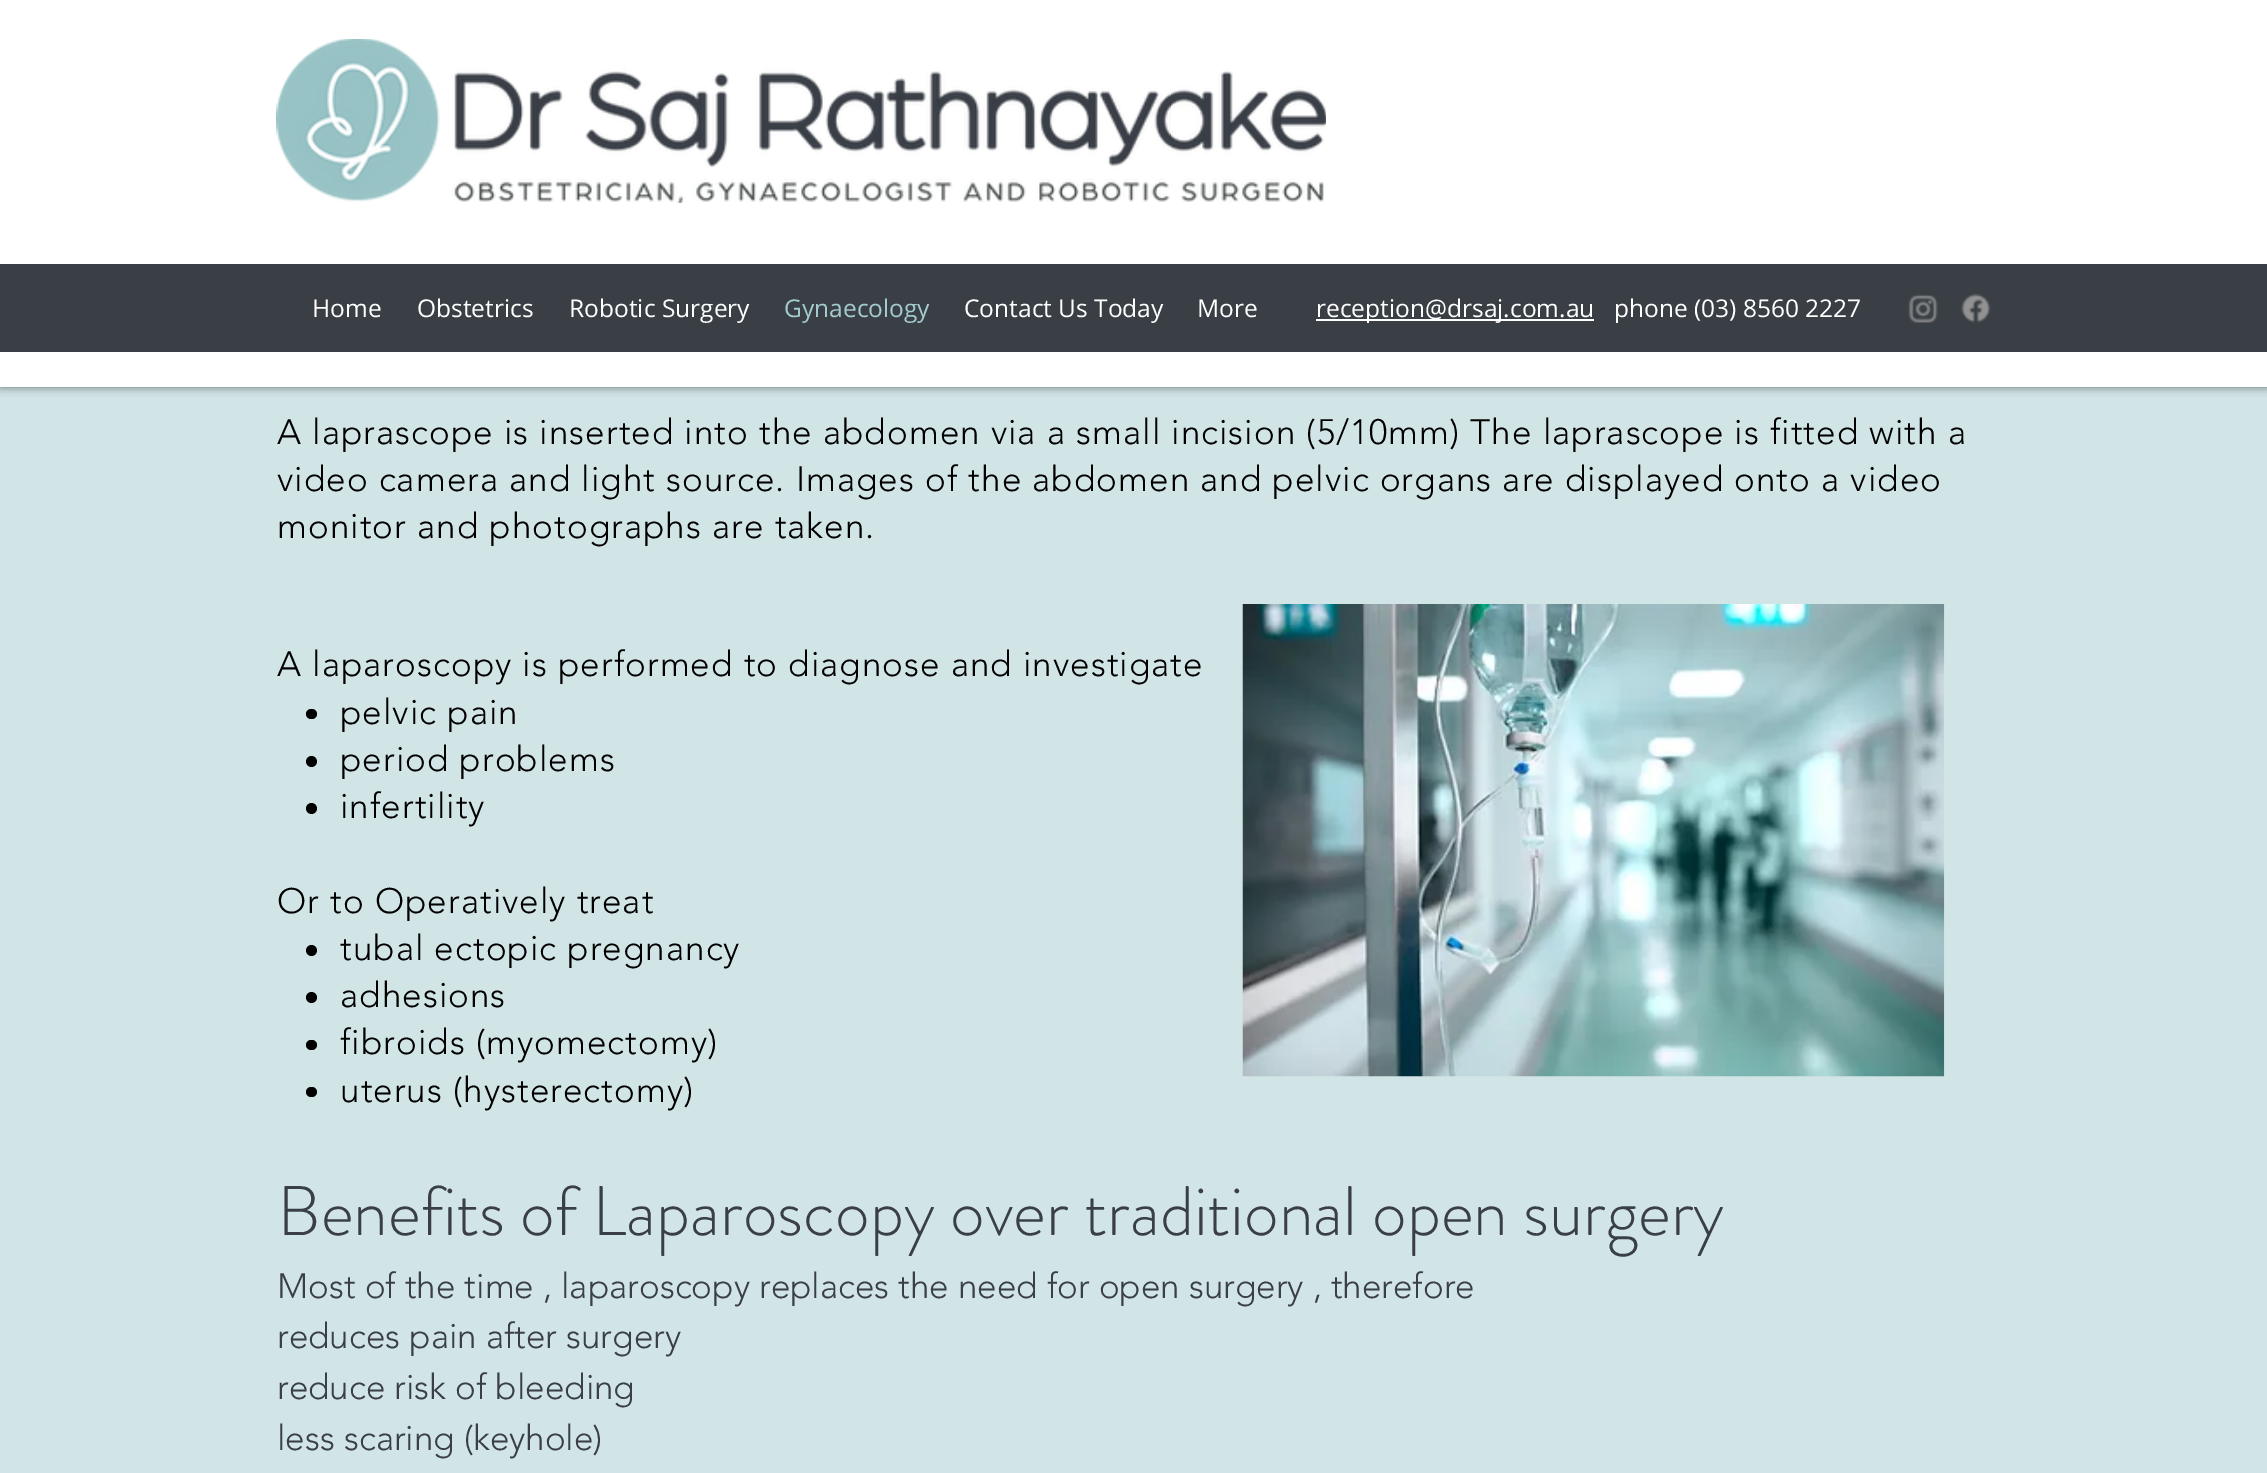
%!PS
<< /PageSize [2267 1473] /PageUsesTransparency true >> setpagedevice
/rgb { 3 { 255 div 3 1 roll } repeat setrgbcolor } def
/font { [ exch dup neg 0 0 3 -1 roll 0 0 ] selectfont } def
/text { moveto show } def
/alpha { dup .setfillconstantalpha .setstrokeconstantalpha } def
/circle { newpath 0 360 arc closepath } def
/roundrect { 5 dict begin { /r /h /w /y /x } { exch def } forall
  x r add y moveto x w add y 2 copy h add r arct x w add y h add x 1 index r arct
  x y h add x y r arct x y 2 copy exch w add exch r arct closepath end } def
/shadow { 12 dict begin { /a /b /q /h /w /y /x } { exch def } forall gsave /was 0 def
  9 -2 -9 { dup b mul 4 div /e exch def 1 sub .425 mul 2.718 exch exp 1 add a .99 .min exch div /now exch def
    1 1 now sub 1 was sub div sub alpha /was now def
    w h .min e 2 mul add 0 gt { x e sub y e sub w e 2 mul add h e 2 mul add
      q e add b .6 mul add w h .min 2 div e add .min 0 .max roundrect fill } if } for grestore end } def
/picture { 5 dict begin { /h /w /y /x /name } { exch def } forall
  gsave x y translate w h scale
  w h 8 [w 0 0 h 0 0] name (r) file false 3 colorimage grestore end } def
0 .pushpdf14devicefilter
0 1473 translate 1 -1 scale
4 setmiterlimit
209 228 230 rgb
0 0 2267 1473 rectfill
0 0 0 rgb
0 0 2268 387 0 4.5 0.5 shadow
255 255 255 rgb
0 0 2267 387 rectfill
(img_01.rgb) 276 39 1050 164 picture
57 63 68 rgb
0 264 2267 88 rectfill
255 255 255 rgb
1316 319 278 2 rectfill
(img_02.rgb) 1908 294 30 29 picture
(img_03.rgb) 1961 293 30 30 picture
0 0 0 rgb
306 709 11 10 5 roundrect fill
311.5 761.5 5.5 circle fill
311.5 808.5 5.5 circle fill
311.5 950.5 5.5 circle fill
311.5 997.5 5.5 circle fill
306 1040 11 10 5 roundrect fill
306 1087 11 10 5 roundrect fill
(img_04.rgb) 1242 604 703 473 picture
/OpenSans-Regular 24.5 font
255 255 255 rgb
(Home) 312 317 text
(Obstetrics) 417 317 text
(Robotic Surgery) 569 317 text
163 202 205 rgb
(Gynaecology) 784 317 text
255 255 255 rgb
(Contact Us Today) 964 317 text
(More) 1197 317 text
(reception@drsaj.com.au) 1316 317 text
(phone \(03\) 8560 2227) 1614 317 text
/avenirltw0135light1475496-Light 35 font
0 0 0 rgb
277 444 moveto 1.05 0 (A laprascope is inserted into the abdomen via a small incision \(5/10mm\) The laprascope is fitted with a) ashow
277 491 moveto 1.05 0 (video camera and light source. Images of the abdomen and pelvic organs are displayed onto a video) ashow
277 538 moveto 1.05 0 (monitor and photographs are taken.) ashow
277 676 moveto 1.05 0 (A laparoscopy is performed to diagnose and investigate) ashow
340 724 moveto 1.05 0 (pelvic pain) ashow
340 771 moveto 1.05 0 (period problems) ashow
340 818 moveto 1.05 0 (infertility) ashow
277 913 moveto 1.05 0 (Or to Operatively treat) ashow
340 960 moveto 1.05 0 (tubal ectopic pregnancy) ashow
340 1007 moveto 1.05 0 (adhesions) ashow
340 1054 moveto 1.05 0 (fibroids \(myomectomy\)) ashow
340 1102 moveto 1.05 0 (uterus \(hysterectomy\)) ashow
/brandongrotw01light-Light 70 font
57 63 68 rgb
(Benefits of Laparoscopy over traditional open surgery) 277 1235 text
/avenirltw0135light1475496-Light 35 font
(Most of the time , laparoscopy replaces the need for open surgery , therefore) 277 1298 text
(reduces pain after surgery) 277 1348 text
(reduce risk of bleeding) 277 1399 text
(less scaring \(keyhole\)) 277 1450 text
.poppdf14devicefilter showpage
